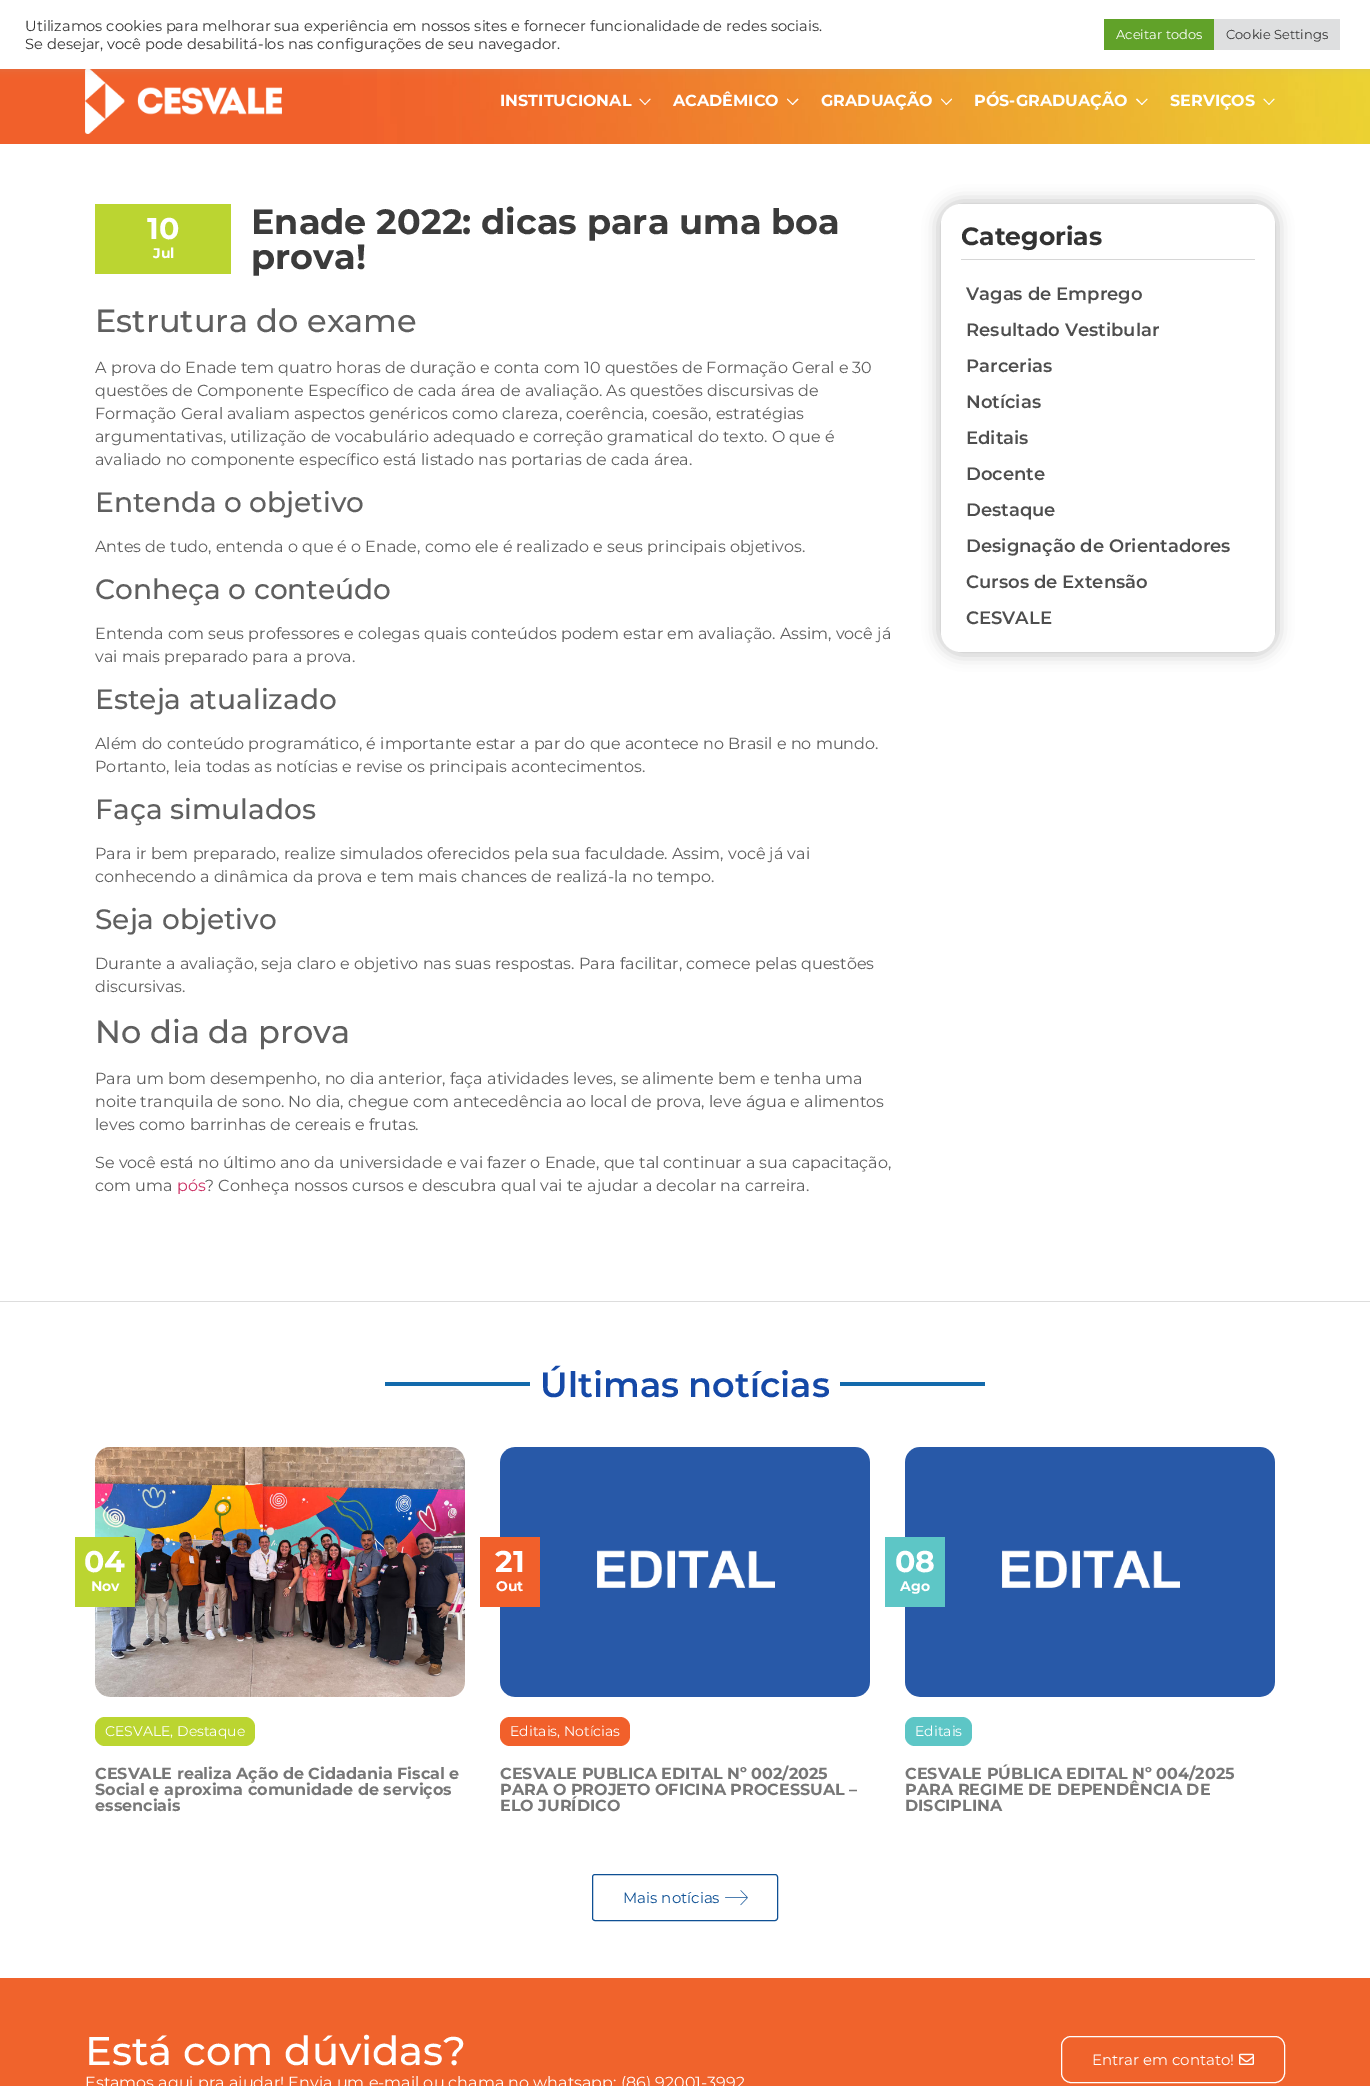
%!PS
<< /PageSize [1370 2086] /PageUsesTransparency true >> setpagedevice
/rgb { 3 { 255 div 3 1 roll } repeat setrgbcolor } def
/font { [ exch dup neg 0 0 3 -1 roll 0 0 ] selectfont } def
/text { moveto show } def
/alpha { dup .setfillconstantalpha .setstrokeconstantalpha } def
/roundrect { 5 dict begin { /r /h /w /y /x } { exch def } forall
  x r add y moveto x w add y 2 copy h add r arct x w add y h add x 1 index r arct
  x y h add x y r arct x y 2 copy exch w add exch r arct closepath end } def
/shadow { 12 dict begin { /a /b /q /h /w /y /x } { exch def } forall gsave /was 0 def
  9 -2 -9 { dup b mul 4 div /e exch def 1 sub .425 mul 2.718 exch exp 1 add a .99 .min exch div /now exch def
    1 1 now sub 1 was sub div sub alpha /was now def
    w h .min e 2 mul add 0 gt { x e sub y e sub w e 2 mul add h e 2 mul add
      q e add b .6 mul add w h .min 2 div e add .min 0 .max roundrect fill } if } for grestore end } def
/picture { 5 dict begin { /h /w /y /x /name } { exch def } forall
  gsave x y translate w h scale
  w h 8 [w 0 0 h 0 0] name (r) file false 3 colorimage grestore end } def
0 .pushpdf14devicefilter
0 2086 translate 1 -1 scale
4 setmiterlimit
255 255 255 rgb
0 0 1370 2086 rectfill
(img_01.rgb) 0 69 1370 75 picture
(img_02.rgb) 85 69 197 65 picture
172 171 171 rgb
0 -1 1370 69 0 5 0.3 shadow
255 255 255 rgb
0 0 1370 69 rectfill
97 162 41 rgb
1104 19 110 31 rectfill
222 223 224 rgb
1214 19 126 31 rectfill
255 255 255 rgb
650.5 99.5 moveto -5.5 5.5 rlineto -0.5 -0.5 rlineto 5.5 -6 rlineto closepath fill
645.5 104.5 moveto -0.5 0.5 rlineto -5.5 -5.5 rlineto 0.5 -1 rlineto closepath fill
798.5 99.5 moveto -6 5.5 rlineto -0.5 -0.5 rlineto 5.5 -6 rlineto closepath fill
793.5 104.5 moveto -1 0.5 rlineto -5.5 -5.5 rlineto 0.5 -1 rlineto closepath fill
952 99.5 moveto -5.5 5.5 rlineto -1 -0.5 rlineto 6 -6 rlineto closepath fill
947 104.5 moveto -0.5 0.5 rlineto -5.5 -5.5 rlineto 0.5 -1 rlineto closepath fill
1147.5 99.5 moveto -5.5 5.5 rlineto -1 -0.5 rlineto 6 -6 rlineto closepath fill
1142.5 104.5 moveto -0.5 0.5 rlineto -6 -5.5 rlineto 1 -1 rlineto closepath fill
1274.5 99.5 moveto -5.5 5.5 rlineto -0.5 -0.5 rlineto 5.5 -6 rlineto closepath fill
1269.5 104.5 moveto -0.5 0.5 rlineto -5.5 -5.5 rlineto 0.5 -1 rlineto closepath fill
187 213 49 rgb
95 204 136 70 rectfill
0 0 0 rgb
938 201 340 454 23 7.5 0.22 shadow
255 255 255 rgb
941 204 334 448 20 roundrect fill
214 214 214 rgb
961 259 294 1 rectfill
221 221 221 rgb
0 1301 1370 1 rectfill
19 106 172 rgb
385 1382 145 4 rectfill
840 1382 145 4 rectfill
(img_03.rgb) 95 1447 370 250 picture
187 213 49 rgb
75 1537 60 70 rectfill
95 1717 160 29 10 roundrect fill
(img_04.rgb) 500 1447 370 250 picture
241 96 43 rgb
480 1537 60 70 rectfill
500 1717 130 29 10 roundrect fill
(img_05.rgb) 905 1447 370 250 picture
93 198 198 rgb
885 1537 60 70 rectfill
905 1717 67 29 10 roundrect fill
14 80 148 rgb
592.5 1874.5 185 46 2.5 roundrect stroke
(img_06.rgb) 725 1890 23 16 picture
240 99 44 rgb
0 1978 1370 108 rectfill
255 255 255 rgb
1061.5 2036.5 223 46 9.5 roundrect stroke
(img_07.rgb) 1239 2053 15 12 picture
/Montserrat-Regular 14.67 font
51 51 51 rgb
(Utilizamos cookies para melhorar sua experiência em nossos sites e fornecer funcionalidade de redes sociais.) 25 31 text
(Se desejar, você pode desabilitá-los nas configurações de seu navegador.) 25 49 text
/Montserrat-Regular 13 font
255 255 255 rgb
(Aceitar todos) 1116 39 text
51 51 51 rgb
(Cookie Settings) 1226 39 text
/Montserrat-Bold 16 font
255 255 255 rgb
(INSTITUCIONAL) 500 106 text
(ACADÊMICO) 673 106 text
(GRADUAÇÃO) 821 106 text
(PÓS-GRADUAÇÃO) 974 106 text
(SERVIÇOS) 1170 106 text
/Montserrat-Bold 30 font
(10) 147 239 text
/Montserrat-Bold 14 font
(Jul) 153 258 text
/Montserrat-Bold 35 font
59 59 59 rgb
(Enade 2022: dicas para uma boa) 251 234 text
(prova!) 251 269 text
/Montserrat-Medium 32 font
95 95 95 rgb
(Estrutura do exame) 95 332 text
/Montserrat-Regular 16 font
(A prova do Enade tem quatro horas de duração e conta com 10 questões de Formação Geral e 30) 95 373 text
(questões de Componente Específico de cada área de avaliação. As questões discursivas de) 95 396 text
(Formação Geral avaliam aspectos genéricos como clareza, coerência, coesão, estratégias) 95 419 text
(argumentativas, utilização de vocabulário adequado e correção gramatical do texto. O que é) 95 442 text
(avaliado no componente específico está listado nas portarias de cada área.) 95 465 text
/Montserrat-Medium 28 font
(Entenda o objetivo) 95 512 text
/Montserrat-Regular 16 font
(Antes de tudo, entenda o que é o Enade, como ele é realizado e seus principais objetivos.) 95 552 text
/Montserrat-Medium 28 font
(Conheça o conteúdo) 95 599 text
/Montserrat-Regular 16 font
(Entenda com seus professores e colegas quais conteúdos podem estar em avaliação. Assim, você já) 95 639 text
(vai mais preparado para a prova.) 95 662 text
/Montserrat-Medium 28 font
(Esteja atualizado) 95 709 text
/Montserrat-Regular 16 font
(Além do conteúdo programático, é importante estar a par do que acontece no Brasil e no mundo.) 95 749 text
(Portanto, leia todas as notícias e revise os principais acontecimentos.) 95 772 text
/Montserrat-Medium 28 font
(Faça simulados) 95 819 text
/Montserrat-Regular 16 font
(Para ir bem preparado, realize simulados oferecidos pela sua faculdade. Assim, você já vai) 95 859 text
(conhecendo a dinâmica da prova e tem mais chances de realizá-la no tempo.) 95 882 text
/Montserrat-Medium 28 font
(Seja objetivo) 95 929 text
/Montserrat-Regular 16 font
(Durante a avaliação, seja claro e objetivo nas suas respostas. Para facilitar, comece pelas questões) 95 969 text
(discursivas.) 95 992 text
/Montserrat-Medium 32 font
(No dia da prova) 95 1043 text
/Montserrat-Regular 16 font
(Para um bom desempenho, no dia anterior, faça atividades leves, se alimente bem e tenha uma) 95 1084 text
(noite tranquila de sono. No dia, chegue com antecedência ao local de prova, leve água e alimentos) 95 1107 text
(leves como barrinhas de cereais e frutas.) 95 1130 text
(Se você está no último ano da universidade e vai fazer o Enade, que tal continuar a sua capacitação,) 95 1168 text
(com uma) 95 1191 text
204 51 102 rgb
(pós) 177 1191 text
95 95 95 rgb
(? Conheça nossos cursos e descubra qual vai te ajudar a decolar na carreira.) 205 1191 text
/Montserrat-Bold 25 font
51 51 51 rgb
(Categorias) 961 245 text
/Montserrat-SemiBold 18 font
78 78 78 rgb
(Vagas de Emprego) 966 300 text
(Resultado Vestibular) 966 336 text
(Parcerias) 966 372 text
(Notícias) 966 408 text
(Editais) 966 444 text
(Docente) 966 480 text
(Destaque) 966 516 text
(Designação de Orientadores) 966 552 text
(Cursos de Extensão) 966 588 text
(CESVALE) 966 624 text
/Montserrat-SemiBold 35 font
21 73 167 rgb
(Últimas notícias) 540 1397 text
/Montserrat-Bold 30 font
255 255 255 rgb
(04) 84 1572 text
/Montserrat-Bold 14 font
(Nov) 91 1591 text
/Montserrat-Regular 14 font
(CESVALE, Destaque) 105 1736 text
/Montserrat-Bold 16 font
119 119 119 rgb
(CESVALE realiza Ação de Cidadania Fiscal e) 95 1779 text
(Social e aproxima comunidade de serviços) 95 1795 text
(essenciais) 95 1811 text
/Montserrat-Bold 30 font
255 255 255 rgb
(21) 495 1572 text
/Montserrat-Bold 14 font
(Out) 496 1591 text
/Montserrat-Regular 14 font
(Editais, Notícias) 510 1736 text
/Montserrat-Bold 16 font
119 119 119 rgb
(CESVALE PUBLICA EDITAL Nº 002/2025) 500 1779 text
(PARA O PROJETO OFICINA PROCESSUAL –) 500 1795 text
(ELO JURÍDICO) 500 1811 text
/Montserrat-Bold 30 font
255 255 255 rgb
(08) 895 1572 text
/Montserrat-Bold 14 font
(Ago) 900 1591 text
/Montserrat-Regular 14 font
(Editais) 915 1736 text
/Montserrat-Bold 16 font
119 119 119 rgb
(CESVALE PÚBLICA EDITAL Nº 004/2025) 905 1779 text
(PARA REGIME DE DEPENDÊNCIA DE) 905 1795 text
(DISCIPLINA) 905 1811 text
/Montserrat-Regular 15 font
14 80 148 rgb
(Mais notícias) 623 1903 text
/Montserrat-Medium 40 font
255 255 255 rgb
(Está com dúvidas?) 85 2065 text
/Montserrat-Regular 16 font
(Estamos aqui pra ajudar! Envia um e-mail ou chama no whatsapp: \(86\) 92001-3992) 85 2088 text
/Montserrat-Regular 15 font
(Entrar em contato!) 1092 2065 text
.poppdf14devicefilter showpage
